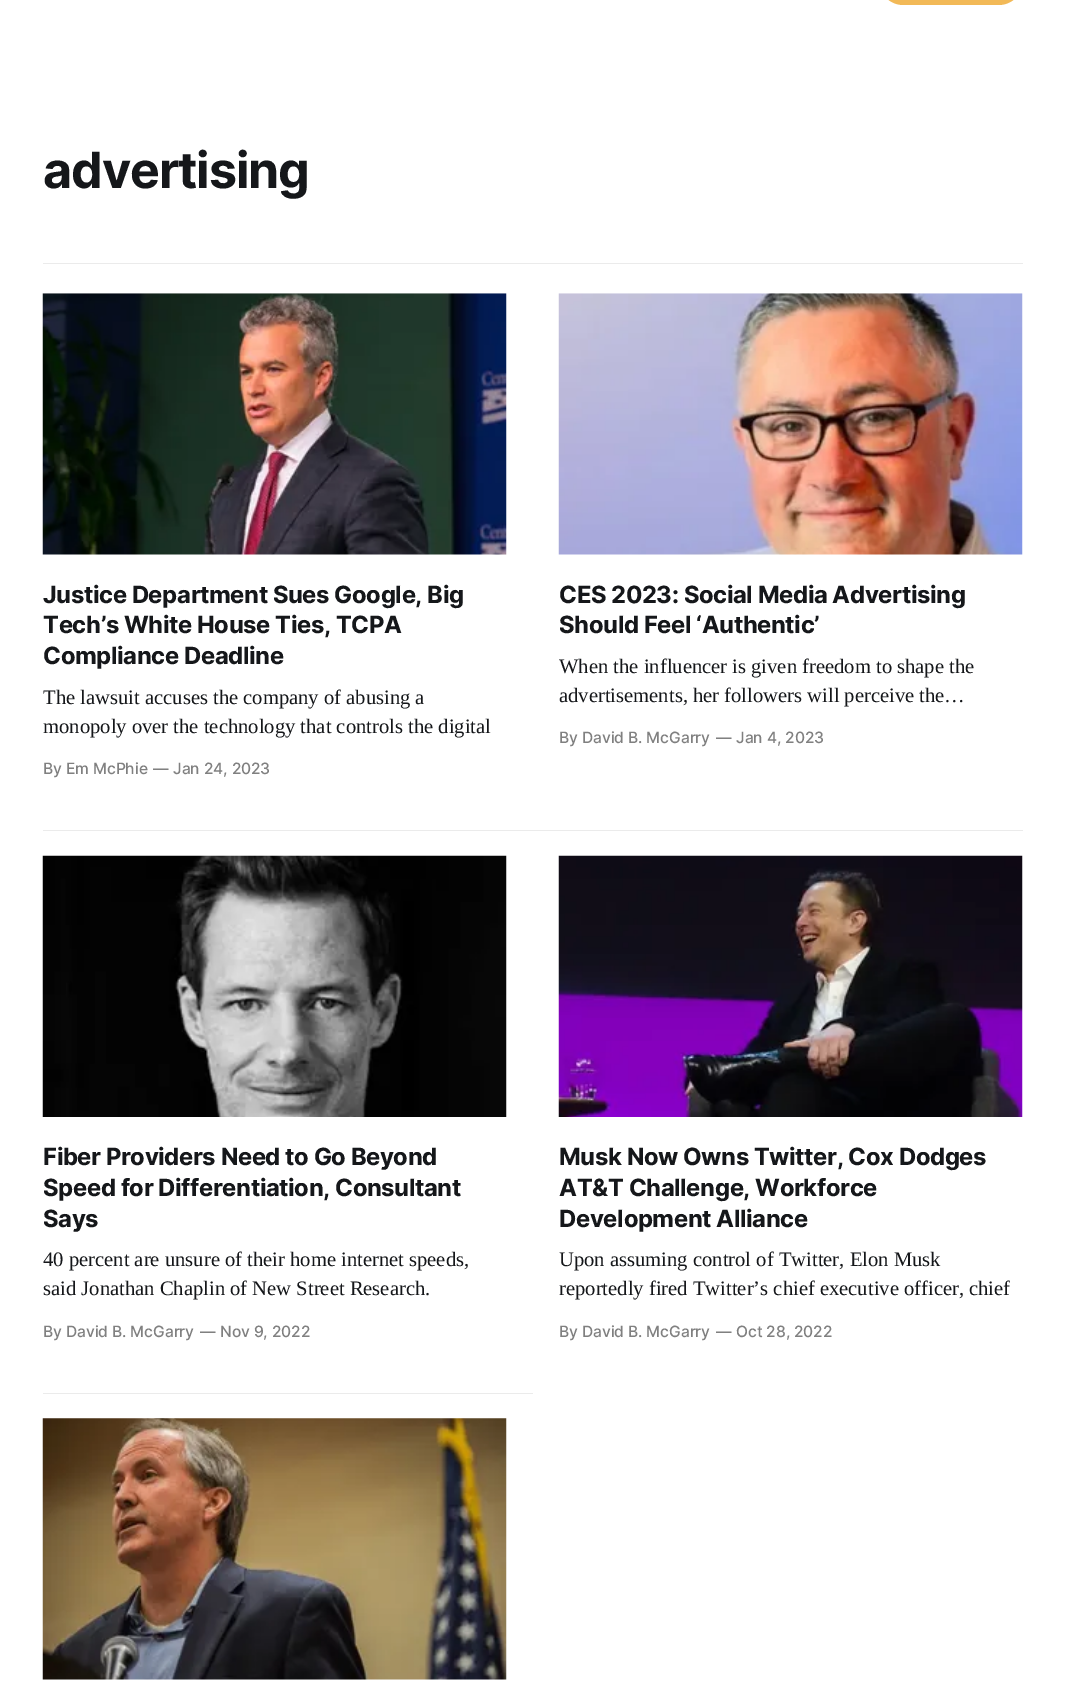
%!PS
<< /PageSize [1065 1704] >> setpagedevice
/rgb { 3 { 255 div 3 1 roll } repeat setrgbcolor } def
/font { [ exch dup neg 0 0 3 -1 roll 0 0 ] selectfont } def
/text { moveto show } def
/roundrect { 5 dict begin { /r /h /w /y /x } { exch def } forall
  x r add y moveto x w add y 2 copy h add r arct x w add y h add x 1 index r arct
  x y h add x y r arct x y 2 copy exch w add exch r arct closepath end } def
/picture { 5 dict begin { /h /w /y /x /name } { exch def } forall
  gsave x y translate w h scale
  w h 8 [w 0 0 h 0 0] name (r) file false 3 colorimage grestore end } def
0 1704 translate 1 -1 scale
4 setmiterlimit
255 255 255 rgb
0 0 1065 1704 rectfill
242 185 87 rgb
879 -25 144 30 24.5 roundrect fill
235 235 235 rgb
43 263 980 1 rectfill
(img_01.rgb) 42 293 465 262 picture
(img_02.rgb) 558 293 465 262 picture
43 830 980 1 rectfill
(img_03.rgb) 42 855 465 262 picture
(img_04.rgb) 558 855 465 262 picture
43 1393 490 1 rectfill
(img_05.rgb) 42 1418 465 262 picture
/Inter-Bold 50 font
21 23 26 rgb
43 188 moveto -1.1 0 (advertising) ashow
/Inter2-Bold 23.75 font
43 603 moveto -0.35 0 (Justice Department Sues Google, Big) ashow
43 633 moveto -0.35 0 (Tech’s White House Ties, TCPA) ashow
43 664 moveto -0.35 0 (Compliance Deadline) ashow
/LiberationSerif-Regular 20.6 font
(The lawsuit accuses the company of abusing a) 43 704 text
(monopoly over the technology that controls the digital) 43 733 text
/Inter-Medium 15.6 font
128 128 128 rgb
43 774 moveto -0.1 0 (By Em McPhie) ashow
153 774 moveto -0.1 0 (—) ashow
173 774 moveto -0.1 0 (Jan 24, 2023) ashow
/Inter2-Bold 23.75 font
21 23 26 rgb
559 603 moveto -0.35 0 (CES 2023: Social Media Advertising) ashow
559 633 moveto -0.35 0 (Should Feel ‘Authentic’) ashow
/LiberationSerif-Regular 20.6 font
(When the influencer is given freedom to shape the) 559 673 text
(advertisements, her followers will perceive the…) 559 702 text
/Inter-Medium 15.6 font
128 128 128 rgb
559 743 moveto -0.1 0 (By David B. McGarry) ashow
716 743 moveto -0.1 0 (—) ashow
736 743 moveto -0.1 0 (Jan 4, 2023) ashow
/Inter2-Bold 23.75 font
21 23 26 rgb
43 1165 moveto -0.35 0 (Fiber Providers Need to Go Beyond) ashow
43 1196 moveto -0.35 0 (Speed for Differentiation, Consultant) ashow
43 1227 moveto -0.35 0 (Says) ashow
/LiberationSerif-Regular 20.6 font
(40 percent are unsure of their home internet speeds,) 43 1266 text
(said Jonathan Chaplin of New Street Research.) 43 1295 text
/Inter-Medium 15.6 font
128 128 128 rgb
43 1337 moveto -0.1 0 (By David B. McGarry) ashow
200 1337 moveto -0.1 0 (—) ashow
220 1337 moveto -0.1 0 (Nov 9, 2022) ashow
/Inter2-Bold 23.75 font
21 23 26 rgb
559 1165 moveto -0.35 0 (Musk Now Owns Twitter, Cox Dodges) ashow
559 1196 moveto -0.35 0 (AT&T Challenge, Workforce) ashow
559 1227 moveto -0.35 0 (Development Alliance) ashow
/LiberationSerif-Regular 20.6 font
(Upon assuming control of Twitter, Elon Musk) 559 1266 text
(reportedly fired Twitter’s chief executive officer, chief) 559 1295 text
/Inter-Medium 15.6 font
128 128 128 rgb
559 1337 moveto -0.1 0 (By David B. McGarry) ashow
716 1337 moveto -0.1 0 (—) ashow
736 1337 moveto -0.1 0 (Oct 28, 2022) ashow
showpage
